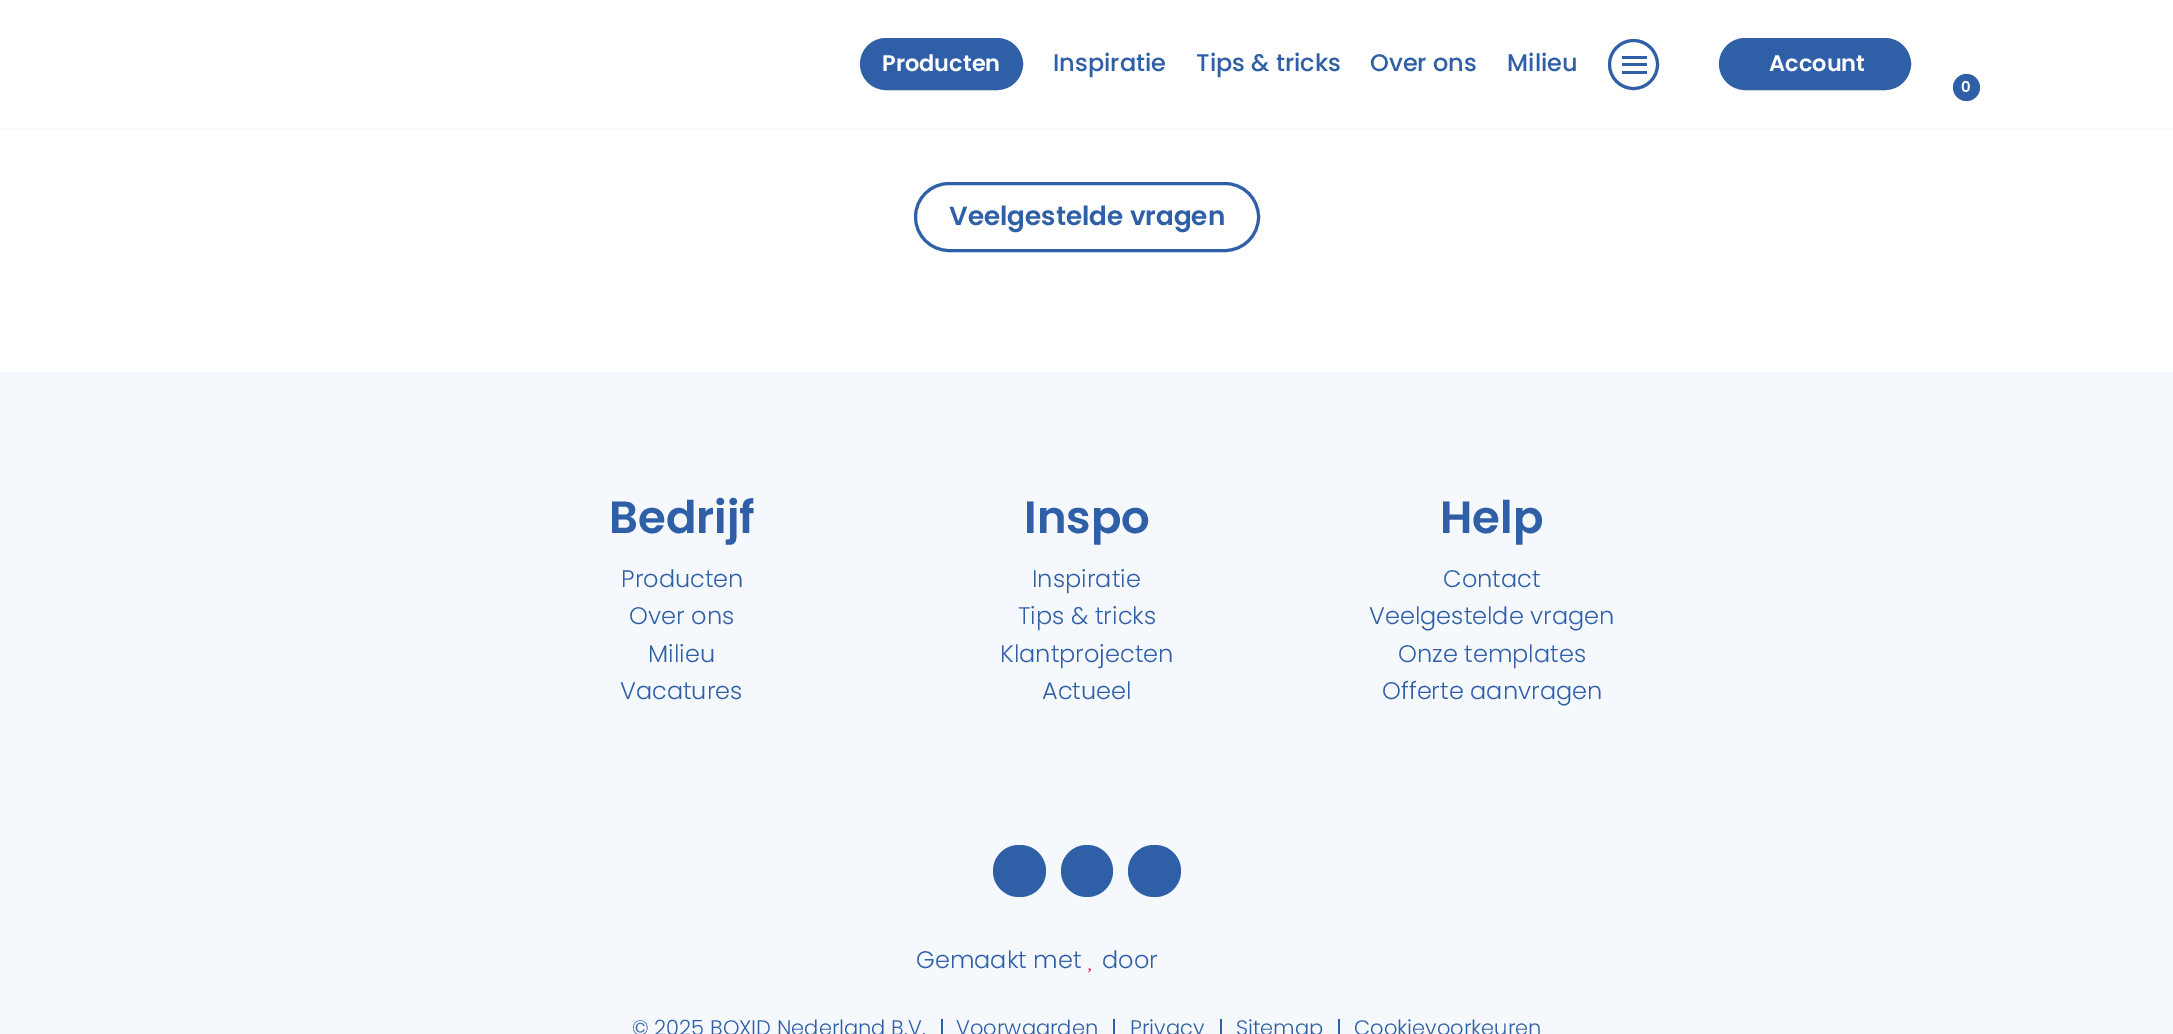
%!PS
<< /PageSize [2173 1034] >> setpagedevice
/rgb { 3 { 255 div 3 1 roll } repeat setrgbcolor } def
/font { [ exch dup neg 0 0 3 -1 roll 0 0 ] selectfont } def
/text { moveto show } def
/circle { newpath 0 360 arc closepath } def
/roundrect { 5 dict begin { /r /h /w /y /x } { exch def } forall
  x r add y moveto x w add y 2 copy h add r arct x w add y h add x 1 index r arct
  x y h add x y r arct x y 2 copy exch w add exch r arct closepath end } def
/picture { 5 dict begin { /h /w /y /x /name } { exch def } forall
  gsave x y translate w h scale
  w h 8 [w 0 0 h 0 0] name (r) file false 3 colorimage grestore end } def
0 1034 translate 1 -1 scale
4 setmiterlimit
255 255 255 rgb
0 0 2173 1034 rectfill
247 247 249 rgb
0 128 2173 2 rectfill
46 95 167 rgb
861 39 161 50 25 roundrect gsave fill grestore
2 setlinewidth
stroke
3 setlinewidth
1633.5 64.5 24 circle stroke
1622 63 25 3 rectfill
1622 56 25 3 rectfill
1622 71 25 3 rectfill
1720 39 190 50 25 roundrect gsave fill grestore
2 setlinewidth
stroke
1966.5 87.5 13.5 circle fill
3 setlinewidth
915.5 183.5 343 67 33.5 roundrect stroke
245 248 252 rgb
0 372 2173 662 rectfill
46 95 167 rgb
993 845 53 52 26 roundrect fill
1087 871 26 circle fill
1128 845 53 52 26 roundrect fill
(img_01.rgb) 1088 968 3 5 picture
941 1019 2 15 rectfill
1113 1019 2 15 rectfill
1220 1019 2 15 rectfill
1338 1019 2 15 rectfill
/Poppins-SemiBold 22.5 font
255 255 255 rgb
(Producten) 882 71 text
/Poppins-Medium 24 font
46 95 167 rgb
(Inspiratie) 1053 71 text
(Tips & tricks) 1196 71 text
(Over ons) 1370 71 text
(Milieu) 1507 71 text
/Poppins-SemiBold 22.5 font
255 255 255 rgb
(Account) 1769 71 text
/Poppins-SemiBold 15 font
(0) 1961 92 text
/Poppins-SemiBold 26.25 font
46 95 167 rgb
(Veelgestelde vragen) 949 225 text
/Poppins-SemiBold 45 font
(Bedrijf) 609 533 text
/Poppins-Light 24 font
(Producten) 621 587 text
(Over ons) 629 624 text
(Milieu) 648 662 text
(Vacatures) 620 699 text
/Poppins-SemiBold 45 font
(Inspo) 1024 533 text
/Poppins-Light 24 font
(Inspiratie) 1032 587 text
(Tips & tricks) 1018 624 text
(Klantprojecten) 1000 662 text
(Actueel) 1042 699 text
/Poppins-SemiBold 45 font
(Help) 1440 533 text
/Poppins-Light 24 font
(Contact) 1443 587 text
(Veelgestelde vragen) 1369 624 text
(Onze templates) 1398 662 text
(Offerte aanvragen) 1382 699 text
(Gemaakt met) 916 968 text
(door) 1102 968 text
/Poppins-Light 21 font
(© 2025 BOXID Nederland B.V.) 632 1035 text
(Voorwaarden) 956 1035 text
(Privacy) 1130 1035 text
(Sitemap) 1236 1035 text
(Cookievoorkeuren) 1354 1035 text
showpage
